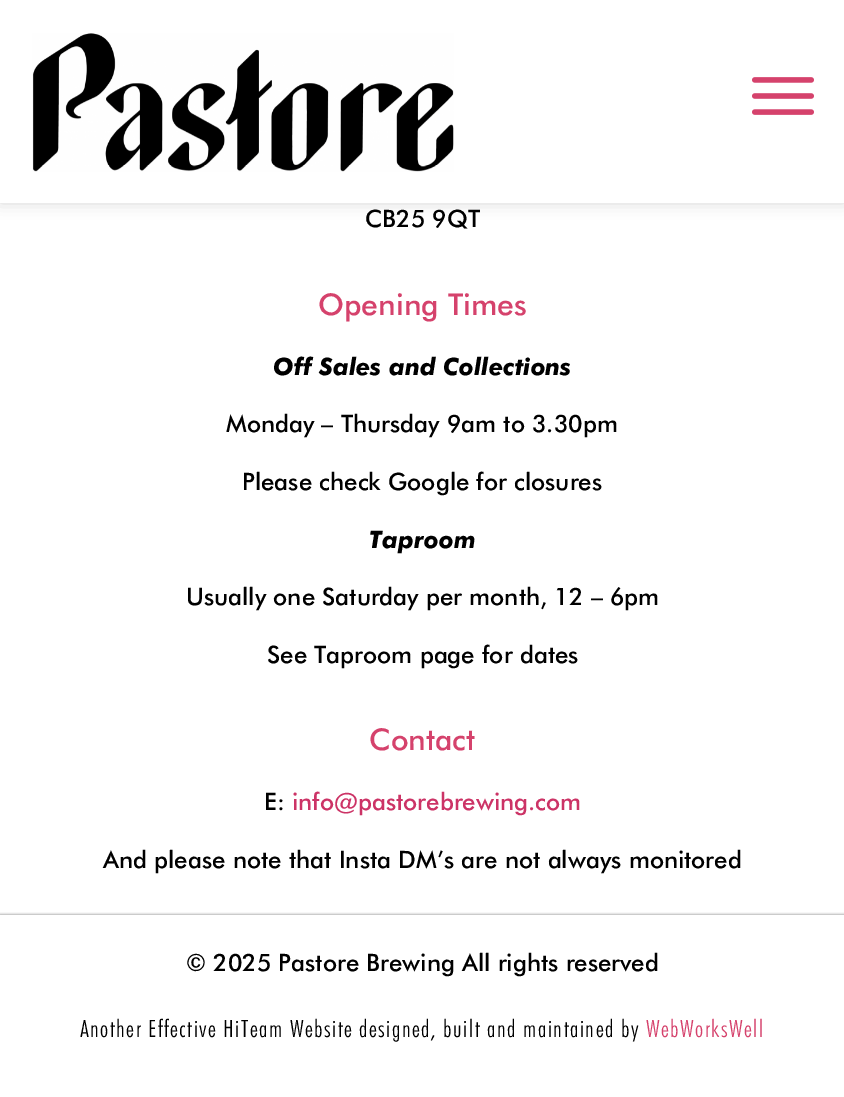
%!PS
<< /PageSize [844 1097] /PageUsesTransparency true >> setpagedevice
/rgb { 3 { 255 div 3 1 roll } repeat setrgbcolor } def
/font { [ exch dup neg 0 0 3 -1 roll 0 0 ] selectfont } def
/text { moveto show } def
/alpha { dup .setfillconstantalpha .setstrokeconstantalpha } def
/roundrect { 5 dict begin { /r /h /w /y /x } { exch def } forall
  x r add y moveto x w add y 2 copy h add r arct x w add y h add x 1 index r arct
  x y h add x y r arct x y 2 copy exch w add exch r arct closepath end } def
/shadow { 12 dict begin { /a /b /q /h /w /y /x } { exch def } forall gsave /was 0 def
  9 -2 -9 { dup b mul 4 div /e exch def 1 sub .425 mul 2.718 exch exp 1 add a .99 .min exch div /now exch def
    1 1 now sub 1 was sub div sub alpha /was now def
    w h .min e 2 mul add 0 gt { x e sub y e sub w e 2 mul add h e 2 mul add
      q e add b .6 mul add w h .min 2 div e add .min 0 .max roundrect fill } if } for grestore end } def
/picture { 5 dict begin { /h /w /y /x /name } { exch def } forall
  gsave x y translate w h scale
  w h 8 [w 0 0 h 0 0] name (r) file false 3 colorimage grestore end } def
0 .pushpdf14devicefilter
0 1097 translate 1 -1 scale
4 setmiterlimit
255 255 255 rgb
0 0 844 1097 rectfill
0 0 0 rgb
0 0 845 203 0 7.5 0.15 shadow
255 255 255 rgb
0 0 844 203 rectfill
(img_01.rgb) 32 33 422 139 picture
(img_02.rgb) 752 77 62 38 picture
gsave
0 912 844 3 rectclip
0 0 0 rgb
0 915 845 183 0 1.5 0.5 shadow
grestore
/Futura-Medium 24 font
0 0 0 rgb
(CB25 9QT) 365 227 text
/Futura-Medium 30 font
213 66 108 rgb
(Opening Times) 318 315 text
/Futura-BoldItalic 24 font
0 0 0 rgb
(Off Sales and Collections) 273 375 text
/Futura-Medium 24 font
(Monday – Thursday 9am to 3.30pm) 226 432 text
(Please check Google for closures) 242 490 text
/Futura-BoldItalic 24 font
(Taproom) 369 548 text
/Futura-Medium 24 font
(Usually one Saturday per month, 12 – 6pm) 186 605 text
(See Taproom page for dates) 267 663 text
/Futura-Medium 30 font
213 66 108 rgb
(Contact) 369 750 text
/Futura-Medium 24 font
0 0 0 rgb
(E:) 264 810 text
204 51 102 rgb
(info@pastorebrewing.com) 292 810 text
0 0 0 rgb
(And please note that Insta DM’s are not always monitored) 103 868 text
(© 2025 Pastore Brewing All rights reserved) 186 971 text
/Futura-Light 24 font
80 1037 moveto 1.5 0 (Another Effective HiTeam Website designed, built and maintained by) ashow
213 66 108 rgb
646 1037 moveto 1.5 0 (WebWorksWell) ashow
.poppdf14devicefilter showpage
